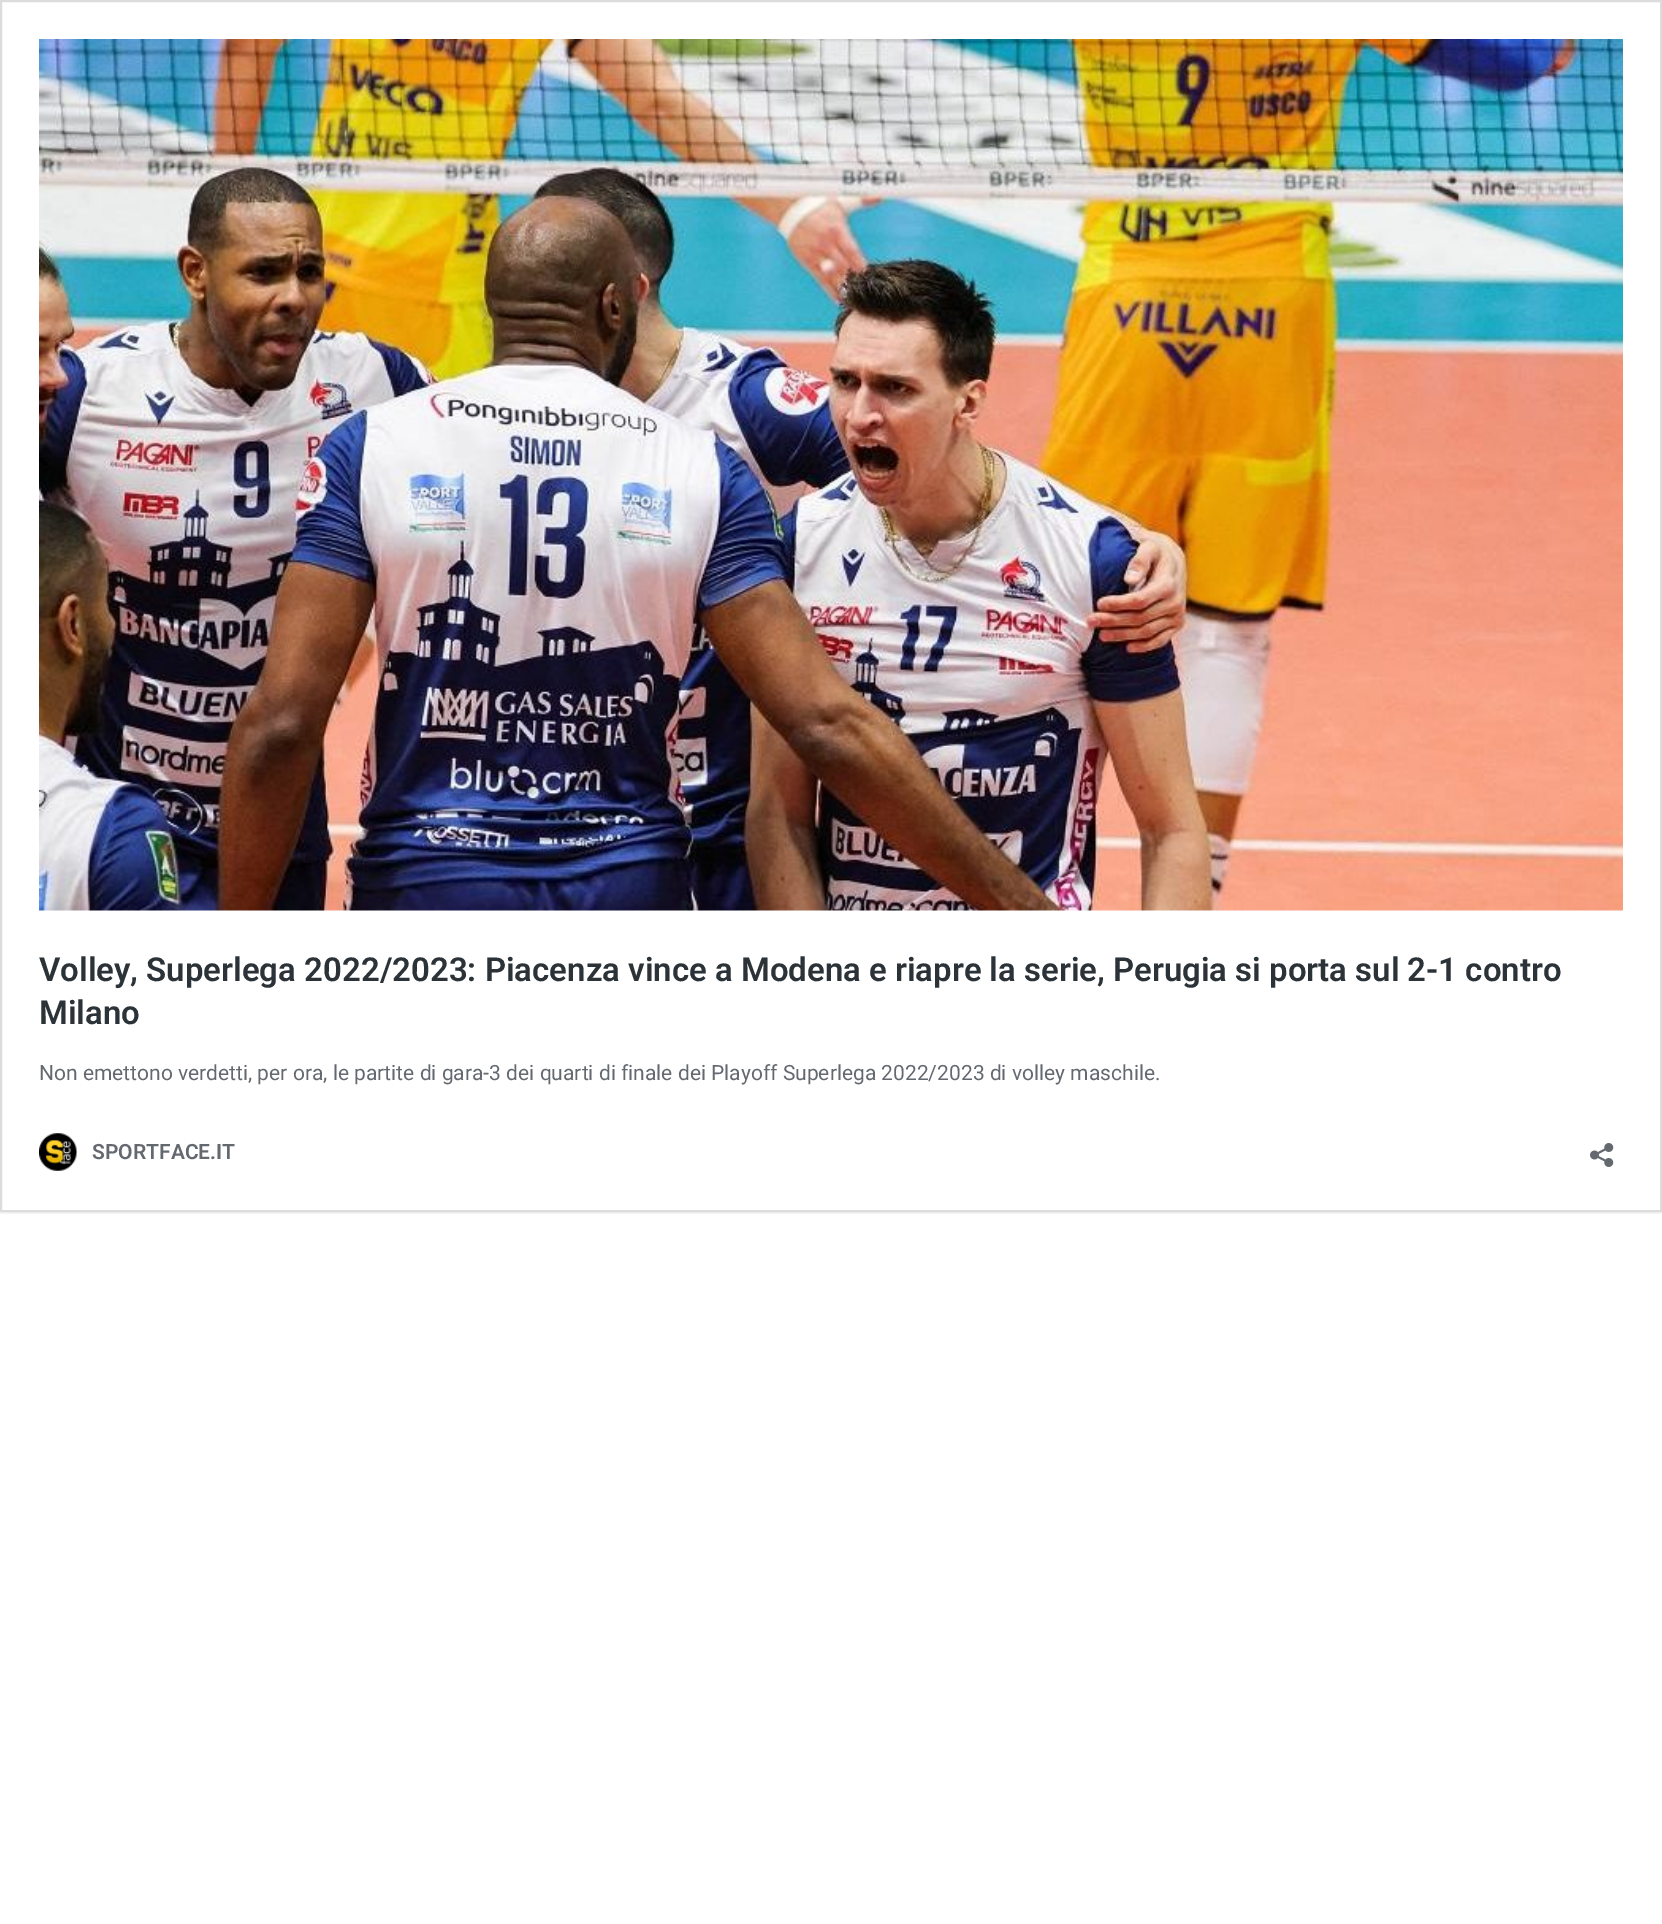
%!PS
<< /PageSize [1662 1924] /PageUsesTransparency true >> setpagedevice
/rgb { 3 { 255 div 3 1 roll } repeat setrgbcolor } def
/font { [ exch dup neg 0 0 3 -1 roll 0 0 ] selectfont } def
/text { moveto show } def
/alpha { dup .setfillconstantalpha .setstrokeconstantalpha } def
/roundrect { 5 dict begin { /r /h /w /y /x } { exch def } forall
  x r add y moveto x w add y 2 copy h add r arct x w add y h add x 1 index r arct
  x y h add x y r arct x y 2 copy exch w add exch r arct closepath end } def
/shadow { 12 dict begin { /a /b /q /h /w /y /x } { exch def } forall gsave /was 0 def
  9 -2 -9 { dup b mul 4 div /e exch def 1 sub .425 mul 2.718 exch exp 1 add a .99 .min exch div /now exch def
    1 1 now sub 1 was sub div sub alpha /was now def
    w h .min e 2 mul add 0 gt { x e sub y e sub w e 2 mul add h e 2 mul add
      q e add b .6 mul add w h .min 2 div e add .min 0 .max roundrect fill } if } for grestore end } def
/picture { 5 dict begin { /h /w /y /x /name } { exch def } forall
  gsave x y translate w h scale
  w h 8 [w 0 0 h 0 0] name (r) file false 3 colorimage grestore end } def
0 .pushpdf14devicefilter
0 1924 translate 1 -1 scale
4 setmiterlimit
255 255 255 rgb
0 0 1662 1924 rectfill
gsave
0 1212 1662 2 rectclip
0 0 0 rgb
0 2 1662 1212 0 1 0.05 shadow
grestore
220 220 222 rgb
2 setlinewidth
1 1 1660 1210 rectstroke
(img_01.rgb) 39 39 1584 872 picture
(img_02.rgb) 39 1133 38 38 picture
(img_03.rgb) 1590 1143 24 24 picture
/Roboto-SemiBold 33 font
44 51 56 rgb
(Volley, Superlega 2022/2023: Piacenza vince a Modena e riapre la serie, Perugia si porta sul 2-1 contro) 39 981 text
(Milano) 39 1024 text
/Roboto-Regular 21 font
100 105 112 rgb
(Non emettono verdetti, per ora, le partite di gara-3 dei quarti di finale dei Playoff Superlega 2022/2023 di volley maschile.) 39 1080 text
/Roboto-SemiBold 21 font
(SPORTFACE.IT) 92 1159 text
.poppdf14devicefilter showpage
